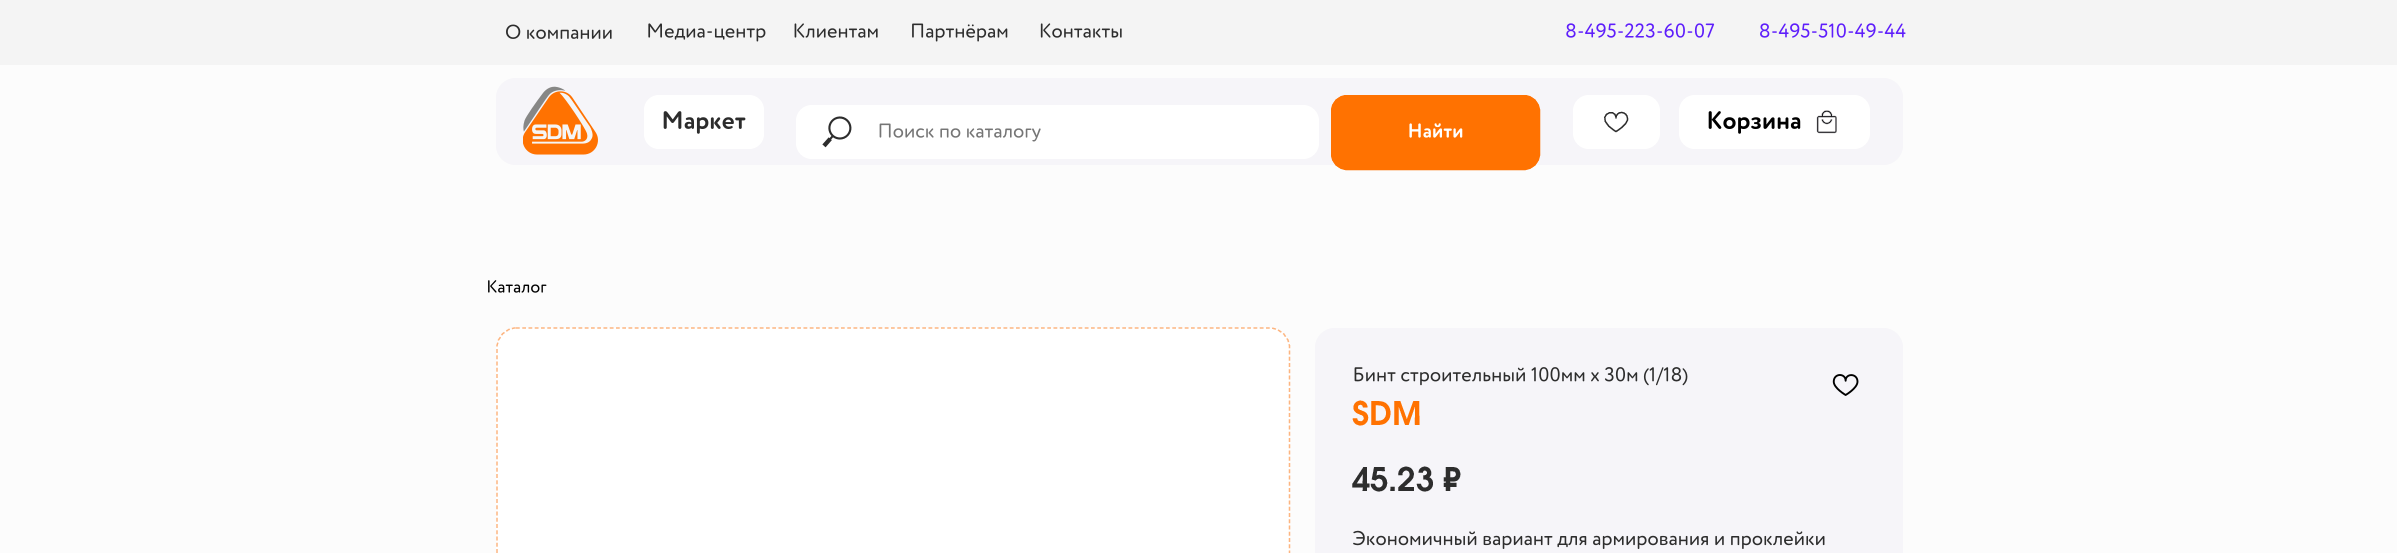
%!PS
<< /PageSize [2397 553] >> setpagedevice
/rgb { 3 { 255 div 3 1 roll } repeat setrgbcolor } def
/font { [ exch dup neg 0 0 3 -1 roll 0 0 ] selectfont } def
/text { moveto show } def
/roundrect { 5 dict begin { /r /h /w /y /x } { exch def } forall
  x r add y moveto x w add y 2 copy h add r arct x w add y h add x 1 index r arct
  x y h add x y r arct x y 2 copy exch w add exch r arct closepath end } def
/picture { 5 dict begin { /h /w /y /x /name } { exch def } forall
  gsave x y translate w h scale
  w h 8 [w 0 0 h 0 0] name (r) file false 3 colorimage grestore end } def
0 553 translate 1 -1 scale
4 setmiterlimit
252 252 252 rgb
0 0 2397 553 rectfill
244 244 244 rgb
0 0 2397 65 rectfill
(img_01.rgb) 506 24 106 15 picture
(img_02.rgb) 648 23 118 19 picture
(img_03.rgb) 794 23 84 15 picture
(img_04.rgb) 912 23 96 19 picture
(img_05.rgb) 1040 23 82 15 picture
(img_06.rgb) 1566 23 149 15 picture
(img_07.rgb) 1760 23 146 15 picture
246 245 249 rgb
496 78 1407 87 20 roundrect fill
(img_08.rgb) 523 86 75 69 picture
255 255 255 rgb
644 95 120 54 15 roundrect fill
(img_09.rgb) 663 111 83 23 picture
796 105 523 54 16 roundrect fill
(img_10.rgb) 879 123 162 19 picture
(img_11.rgb) 822 116 30 32 picture
255 114 1 rgb
1331.5 95.5 208 74 15.5 roundrect gsave fill grestore
stroke
(img_12.rgb) 1409 123 54 15 picture
255 255 255 rgb
1573 95 87 54 16 roundrect fill
1679 95 191 54 16 roundrect fill
45 45 45 rgb
1.2 setlinewidth
1 setlinejoin
1627.5 119 moveto 0 6 -11.5 12.5 -11.5 12.5 rcurveto -25.5 -15 0 -26 0 -13.5 rcurveto 0 -7.5 11.5 -7.5 11.5 1 rcurveto closepath stroke
(img_13.rgb) 1708 111 93 23 picture
(img_14.rgb) 1816 110 21 24 picture
(img_15.rgb) 488 280 59 13 picture
255 255 255 rgb
496 328 794 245 20 roundrect fill
253 181 128 rgb
0 setlinejoin
[3.75 2.5] 0 setdash
516 328 moveto 754 0 rlineto 10.5 0 19.5 9 19.5 19.5 rcurveto 0 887.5 rlineto 0 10.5 -9 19.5 -19.5 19.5 rcurveto -754 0 rlineto -10.5 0 -19 -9 -19 -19.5 rcurveto 0 -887.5 rlineto 0 -10.5 8.5 -19.5 19 -19.5 rcurveto closepath stroke
246 245 249 rgb
1315 328 588 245 20 roundrect fill
(img_16.rgb) 1832 374 27 22 picture
(img_17.rgb) 1354 367 334 19 picture
(img_18.rgb) 1353 530 472 19 picture
/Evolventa-Bold 32.5 font
255 114 1 rgb
(SDM) 1352 425 text
45 45 45 rgb
(45.23 ₽) 1352 491 text
showpage
